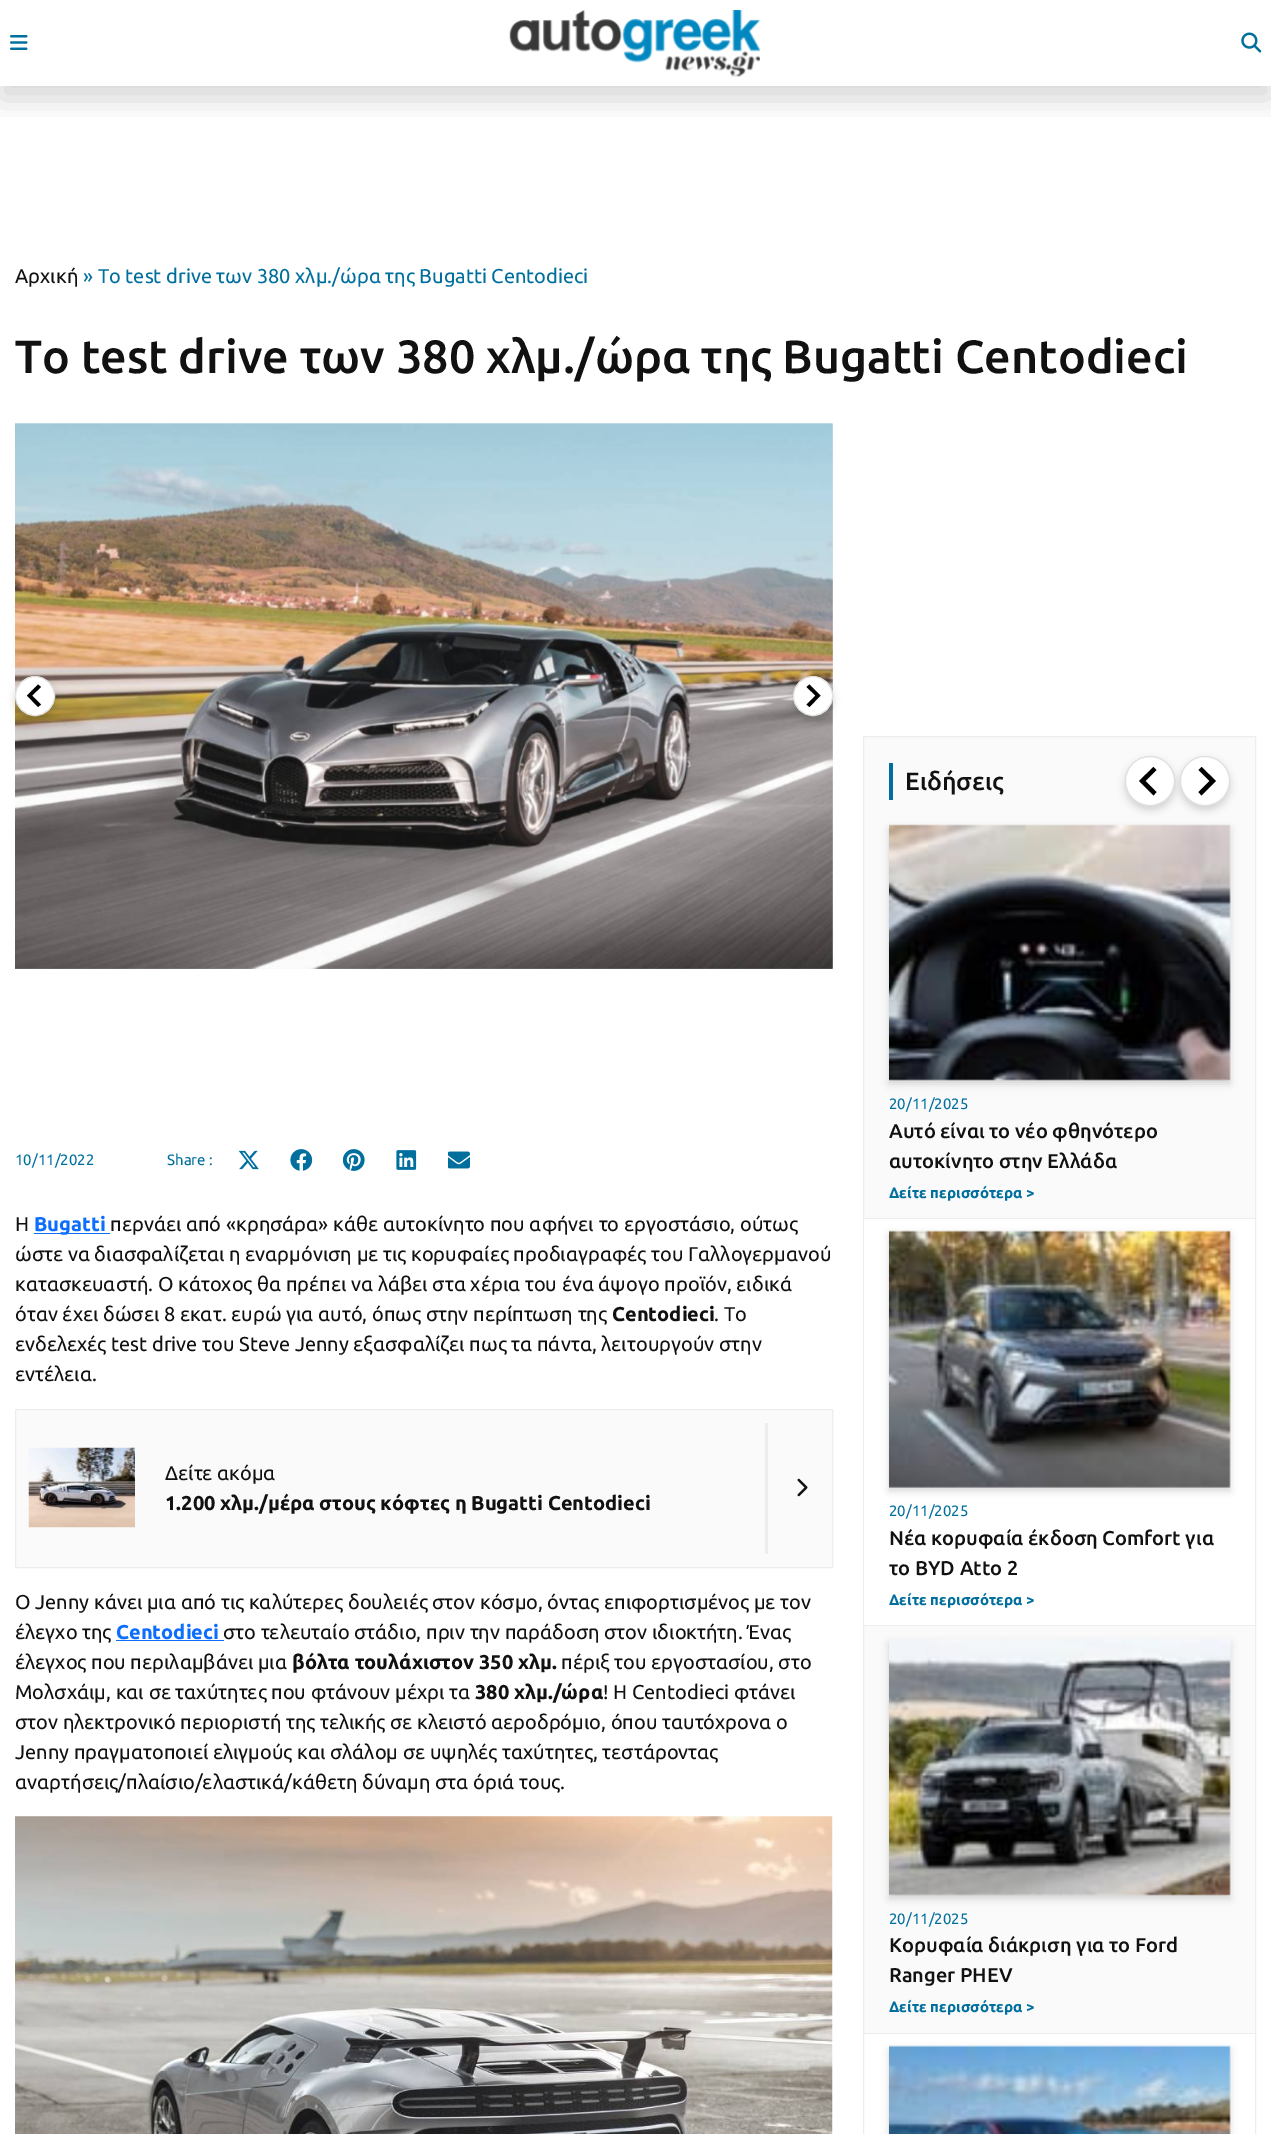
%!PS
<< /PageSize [1271 2134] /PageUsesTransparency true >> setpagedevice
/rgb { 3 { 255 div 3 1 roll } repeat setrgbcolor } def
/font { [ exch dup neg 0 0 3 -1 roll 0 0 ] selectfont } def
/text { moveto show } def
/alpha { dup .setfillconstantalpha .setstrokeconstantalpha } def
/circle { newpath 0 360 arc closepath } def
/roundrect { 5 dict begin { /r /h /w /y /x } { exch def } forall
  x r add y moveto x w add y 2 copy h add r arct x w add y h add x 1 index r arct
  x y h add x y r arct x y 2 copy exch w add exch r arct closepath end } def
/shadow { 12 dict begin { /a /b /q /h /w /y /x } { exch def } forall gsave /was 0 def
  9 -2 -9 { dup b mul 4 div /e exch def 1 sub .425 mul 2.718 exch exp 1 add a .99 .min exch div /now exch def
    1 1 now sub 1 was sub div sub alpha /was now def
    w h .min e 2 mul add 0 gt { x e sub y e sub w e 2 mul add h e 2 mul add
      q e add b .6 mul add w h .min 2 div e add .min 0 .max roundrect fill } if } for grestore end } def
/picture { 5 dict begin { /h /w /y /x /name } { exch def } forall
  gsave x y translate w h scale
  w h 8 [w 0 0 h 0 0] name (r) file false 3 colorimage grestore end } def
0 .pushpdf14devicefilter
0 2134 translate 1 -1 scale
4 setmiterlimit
255 255 255 rgb
0 0 1271 2134 rectfill
gsave
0 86 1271 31 rectclip
0 0 0 rgb
0 13 1271 86 0 15.5 0.16 shadow
grestore
(img_01.rgb) 10 35 18 15 picture
(img_02.rgb) 509 10 251 67 picture
(img_03.rgb) 1241 32 21 21 picture
(img_04.rgb) 15 423 818 546 picture
gsave
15 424 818 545 rectclip
0 0 0 rgb
15 428 818 545 0 4 0.16 shadow
grestore
(img_05.rgb) 15 423 818 546 picture
0 0 0 rgb
15 680 40 40 20 4 0.16 shadow
255 255 255 rgb
35 696 19.5 circle gsave fill grestore
223 223 223 rgb
stroke
0 0 0 rgb
38 684.5 moveto 3 2.5 rlineto -9 8.5 rlineto 9 9 rlineto -3 2.5 rlineto -11 -11.5 rlineto closepath fill
793 680 40 40 20 4 0.16 shadow
255 255 255 rgb
813 696 19.5 circle gsave fill grestore
223 223 223 rgb
stroke
0 0 0 rgb
809.5 684.5 moveto -3 2.5 rlineto 9 8.5 rlineto -9 9 rlineto 3 2.5 rlineto 11 -11.5 rlineto closepath fill
(img_06.rgb) 238 1150 21 20 picture
(img_07.rgb) 290 1149 23 22 picture
(img_08.rgb) 343 1149 22 22 picture
(img_09.rgb) 396 1150 21 20 picture
(img_10.rgb) 448 1151 22 18 picture
13 110 253 rgb
34 1233 76 1 rectfill
250 250 250 rgb
15.5 1409.5 moveto 817 0 rlineto 0 158 rlineto -817 0 rlineto closepath gsave fill grestore
237 237 237 rgb
stroke
(img_11.rgb) 28 1447 107 81 picture
765 1423 3 131 rectfill
(img_12.rgb) 797 1478 11 19 picture
13 110 253 rgb
116 1640 108 1 rectfill
(img_13.rgb) 15 1816 818 318 picture
250 250 250 rgb
864 737 391 1296 rectfill
237 237 237 rgb
863.5 736.5 392 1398 rectstroke
0 111 158 rgb
889 763 4 37 rectfill
0 0 0 rgb
1125 760 50 50 25 4 0.16 shadow
255 255 255 rgb
1150 781 24.5 circle gsave fill grestore
223 223 223 rgb
stroke
0 0 0 rgb
1153.5 767 moveto 3 3 rlineto -11 11 rlineto 11 11 rlineto -3 3.5 rlineto -14.5 -14.5 rlineto closepath fill
1180 760 50 50 25 4 0.16 shadow
255 255 255 rgb
1205 781 24.5 circle gsave fill grestore
223 223 223 rgb
stroke
0 0 0 rgb
1201.5 767 moveto -3 3 rlineto 11 11 rlineto -11 11 rlineto 3 3.5 rlineto 14.5 -14.5 rlineto closepath fill
889 829 341 255 0 4 0.16 shadow
(img_14.rgb) 889 824 342 257 picture
255 255 255 rgb
864 1219 391 406 rectfill
237 237 237 rgb
864 1218 391 1 rectfill
864 1625 391 1 rectfill
0 0 0 rgb
889 1235 341 256 0 4 0.16 shadow
(img_15.rgb) 889 1230 342 258 picture
889 1643 341 256 0 4 0.16 shadow
(img_16.rgb) 889 1639 342 257 picture
237 237 237 rgb
864 2033 391 1 rectfill
0 0 0 rgb
889 2050 341 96 0 4 0.16 shadow
(img_17.rgb) 889 2045 342 89 picture
/Ubuntu-Regular 20 font
17 17 17 rgb
(Αρχική) 15 283 text
0 111 158 rgb
(» Το test drive των 380 χλμ./ώρα της Bugatti Centodieci) 83 283 text
/Ubuntu-Medium 46.6 font
17 17 17 rgb
(Το test drive των 380 χλμ./ώρα της Bugatti Centodieci) 15 373 text
/Ubuntu-Regular 15 font
0 111 158 rgb
(10/11/2022) 15 1165 text
(Share :) 167 1165 text
/Ubuntu-Regular 20 font
17 17 17 rgb
(Η) 15 1231 text
/Ubuntu-Bold 20 font
13 110 253 rgb
(Bugatti) 34 1231 text
/Ubuntu-Regular 20 font
17 17 17 rgb
(περνάει από «κρησάρα» κάθε αυτοκίνητο που αφήνει το εργοστάσιο, ούτως) 110 1231 text
(ώστε να διασφαλίζεται η εναρμόνιση με τις κορυφαίες προδιαγραφές του Γαλλογερμανού) 15 1261 text
(κατασκευαστή. Ο κάτοχος θα πρέπει να λάβει στα χέρια του ένα άψογο προϊόν, ειδικά) 15 1291 text
(όταν έχει δώσει 8 εκατ. ευρώ για αυτό, όπως στην περίπτωση της) 15 1321 text
/Ubuntu-Bold 20 font
(Centodieci) 612 1321 text
/Ubuntu-Regular 20 font
(. Το) 714 1321 text
(ενδελεχές test drive του Steve Jenny εξασφαλίζει πως τα πάντα, λειτουργούν στην) 15 1351 text
(εντέλεια.) 15 1381 text
(Δείτε ακόμα) 165 1480 text
/Ubuntu-Bold 20 font
(1.200 χλμ./μέρα στους κόφτες η Bugatti Centodieci) 165 1510 text
/Ubuntu-Regular 20 font
(Ο Jenny κάνει μια από τις καλύτερες δουλειές στον κόσμο, όντας επιφορτισμένος με τον) 15 1609 text
(έλεγχο της) 15 1639 text
/Ubuntu-Bold 20 font
13 110 253 rgb
(Centodieci) 116 1639 text
/Ubuntu-Regular 20 font
17 17 17 rgb
(στο τελευταίο στάδιο, πριν την παράδοση στον ιδιοκτήτη. Ένας) 223 1639 text
(έλεγχος που περιλαμβάνει μια) 15 1669 text
/Ubuntu-Bold 20 font
(βόλτα τουλάχιστον 350 χλμ.) 292 1669 text
/Ubuntu-Regular 20 font
(πέριξ του εργοστασίου, στο) 561 1669 text
(Μολσχάιμ, και σε ταχύτητες που φτάνουν μέχρι τα) 15 1699 text
/Ubuntu-Bold 20 font
(380 χλμ./ώρα) 475 1699 text
/Ubuntu-Regular 20 font
(! Η Centodieci φτάνει) 603 1699 text
(στον ηλεκτρονικό περιοριστή της τελικής σε κλειστό αεροδρόμιο, όπου ταυτόχρονα ο) 15 1729 text
(Jenny πραγματοποιεί ελιγμούς και σλάλομ σε υψηλές ταχύτητες, τεστάροντας) 15 1759 text
(αναρτήσεις/πλαίσιο/ελαστικά/κάθετη δύναμη στα όριά τους.) 15 1789 text
/Ubuntu-Medium 25 font
(Ειδήσεις) 905 790 text
/Ubuntu-Regular 15 font
0 111 158 rgb
(20/11/2025) 889 1109 text
/Ubuntu-Medium 20 font
17 17 17 rgb
(Αυτό είναι το νέο φθηνότερο) 889 1138 text
(αυτοκίνητο στην Ελλάδα) 889 1168 text
/Ubuntu-Bold 15 font
0 111 158 rgb
(Δείτε περισσότερα >) 889 1198 text
/Ubuntu-Regular 15 font
(20/11/2025) 889 1516 text
/Ubuntu-Medium 20 font
17 17 17 rgb
(Νέα κορυφαία έκδοση Comfort για) 889 1545 text
(το BYD Atto 2) 889 1575 text
/Ubuntu-Bold 15 font
0 111 158 rgb
(Δείτε περισσότερα >) 889 1605 text
/Ubuntu-Regular 15 font
(20/11/2025) 889 1924 text
/Ubuntu-Medium 20 font
17 17 17 rgb
(Κορυφαία διάκριση για το Ford) 889 1952 text
(Ranger PHEV) 889 1982 text
/Ubuntu-Bold 15 font
0 111 158 rgb
(Δείτε περισσότερα >) 889 2012 text
.poppdf14devicefilter showpage
